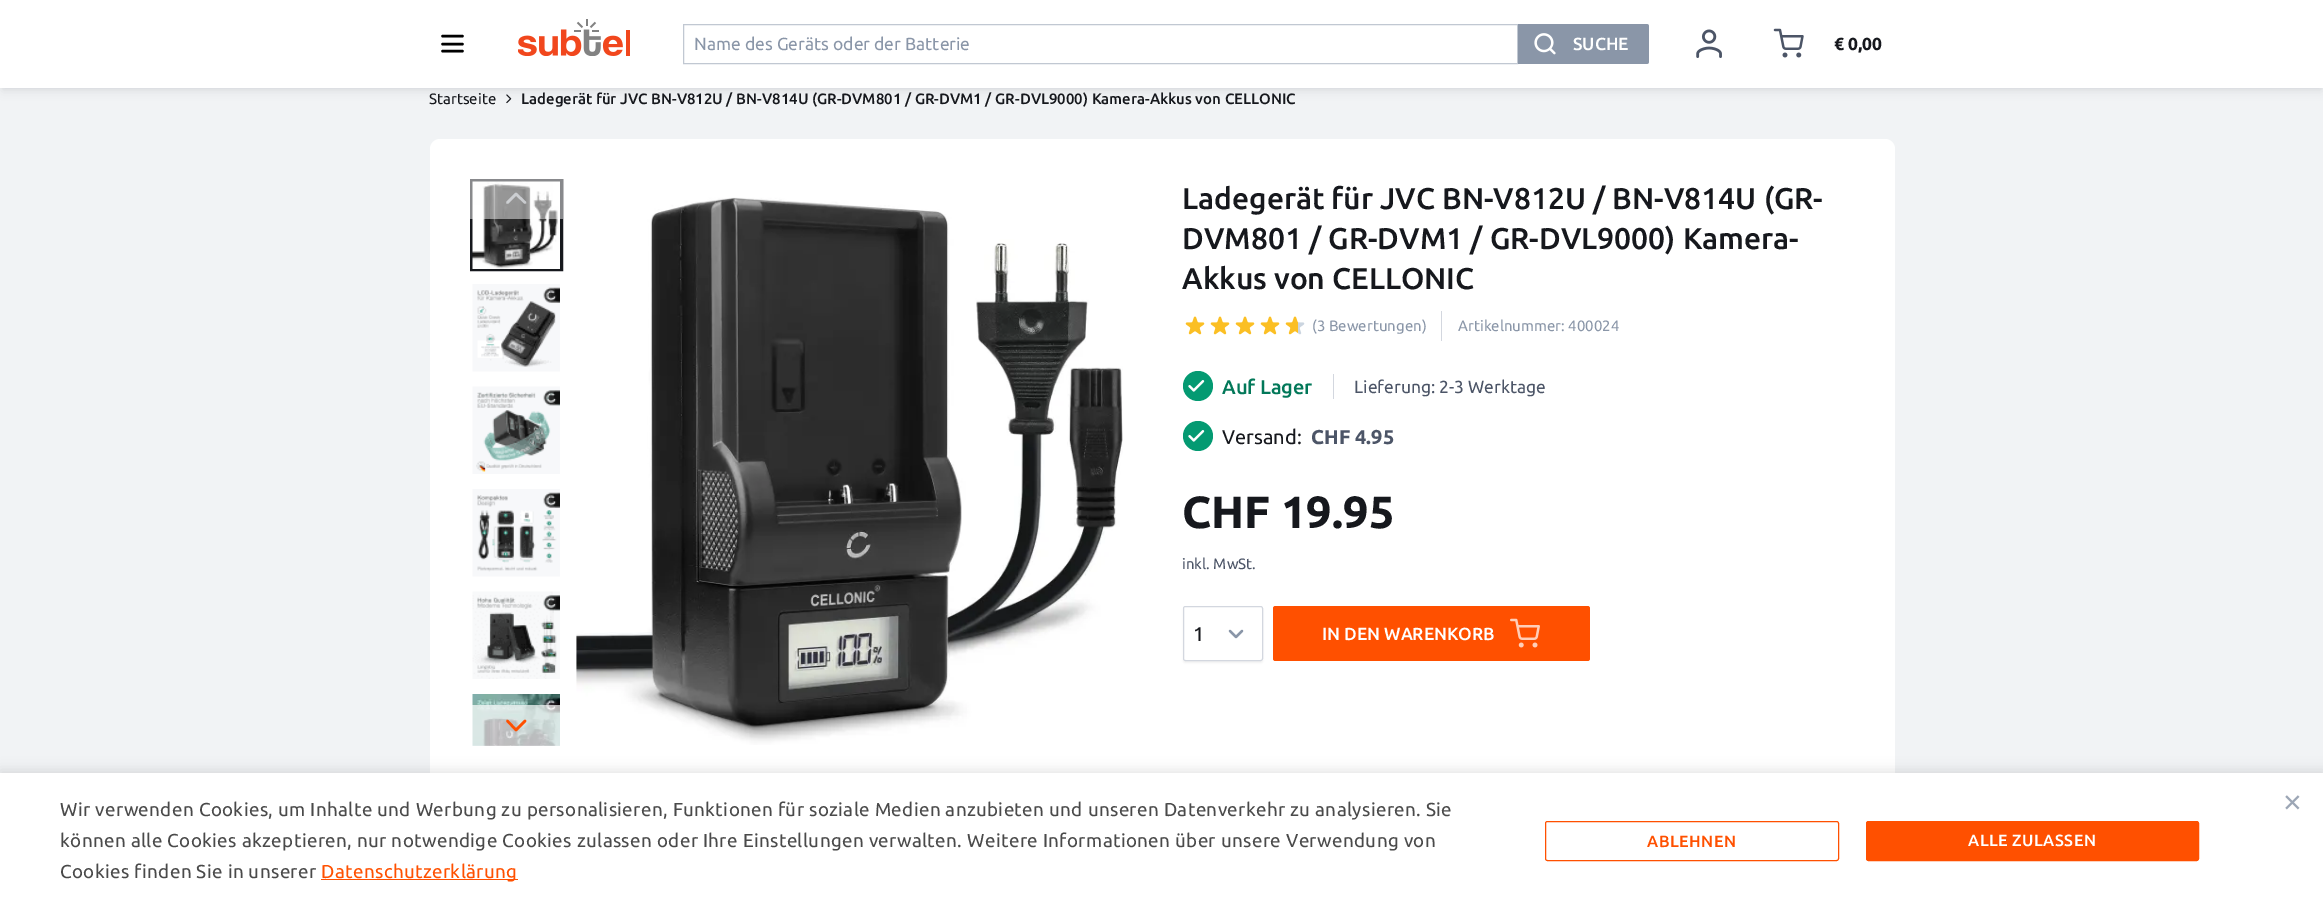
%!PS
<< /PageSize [2323 910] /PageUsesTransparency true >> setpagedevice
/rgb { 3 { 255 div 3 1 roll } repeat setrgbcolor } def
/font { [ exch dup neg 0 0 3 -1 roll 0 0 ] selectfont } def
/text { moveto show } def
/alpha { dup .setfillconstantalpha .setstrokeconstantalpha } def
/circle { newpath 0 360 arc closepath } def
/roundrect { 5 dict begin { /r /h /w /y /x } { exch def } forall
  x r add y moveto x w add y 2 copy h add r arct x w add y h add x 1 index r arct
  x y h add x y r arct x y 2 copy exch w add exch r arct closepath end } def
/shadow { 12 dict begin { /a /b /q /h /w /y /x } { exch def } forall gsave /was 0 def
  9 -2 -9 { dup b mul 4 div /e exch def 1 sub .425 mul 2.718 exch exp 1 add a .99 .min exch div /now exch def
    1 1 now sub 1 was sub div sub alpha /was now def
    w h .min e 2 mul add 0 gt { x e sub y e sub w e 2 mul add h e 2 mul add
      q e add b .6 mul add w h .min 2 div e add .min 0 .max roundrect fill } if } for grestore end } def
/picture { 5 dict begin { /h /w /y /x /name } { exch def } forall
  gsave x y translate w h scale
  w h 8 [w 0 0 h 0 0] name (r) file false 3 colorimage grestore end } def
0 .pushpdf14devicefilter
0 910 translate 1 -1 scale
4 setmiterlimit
241 243 245 rgb
0 0 2323 910 rectfill
(img_05.rgb) 506 94 6 10 picture
16 24 40 rgb
3 8 2318 82 0 5 0.1 shadow
3 5 2318 83 0 2.5 0.06 shadow
255 255 255 rgb
0 0 2323 88 rectfill
0 0 0 rgb
2.5 setlinewidth
1 setlinecap
1 setlinejoin
442.5 36 moveto 20 0 rlineto 442.5 44 moveto 20 0 rlineto 442.5 51 moveto 20 0 rlineto stroke
(img_01.rgb) 518 19 112 37 picture
193 200 210 rgb
1 setlinewidth
0 setlinecap
0 setlinejoin
683.5 24.5 834 39 rectstroke
138 150 168 rgb
1518 24 moveto 128.5 0 rlineto 1.5 0 2.5 1 2.5 2.5 rcurveto 0 35 rlineto 0 1.5 -1 2.5 -2.5 2.5 rcurveto -128.5 0 rlineto closepath fill
(img_02.rgb) 1534 33 22 22 picture
(img_03.rgb) 1696 29 26 29 picture
(img_04.rgb) 1773 28 31 30 picture
255 255 255 rgb
430 139 1465 646 10 roundrect fill
22 24 29 rgb
3 setlinewidth
471.5 180.5 90 89 rectstroke
(img_06.rgb) 472 181 88 88 picture
(img_07.rgb) 472 284 88 88 picture
(img_08.rgb) 472 386 88 88 picture
(img_09.rgb) 472 489 88 88 picture
(img_10.rgb) 472 591 88 88 picture
(img_11.rgb) 472 694 88 52 picture
0.49 alpha
255 255 255 rgb
470 179 93 40 rectfill
0.7 alpha
228 231 236 rgb
2.5 setlinewidth
1 setlinecap
1 setlinejoin
507.5 202.5 moveto 8.5 -8.5 rlineto 9 8.5 rlineto stroke
255 255 255 rgb
472 705 88 40 rectfill
1 alpha
255 80 0 rgb
525 721 moveto -9 9 rlineto -8.5 -9 rlineto stroke
(img_12.rgb) 576 197 547 548 picture
(img_13.rgb) 1185 316 20 19 picture
(img_13.rgb) 1210 316 20 19 picture
(img_13.rgb) 1235 316 20 19 picture
(img_13.rgb) 1260 316 20 19 picture
(img_14.rgb) 1285 316 20 19 picture
211 215 223 rgb
1441 311 1 30 rectfill
4 154 114 rgb
1198 386 15 circle fill
(img_15.rgb) 1188 380 17 12 picture
211 215 223 rgb
1333 374 1 25 rectfill
4 154 114 rgb
1198 436 15 circle fill
(img_15.rgb) 1188 430 17 12 picture
0 0 0 rgb
1183 608 80 55 2.5 1 0.05 shadow
255 255 255 rgb
1183 606 80 55 2.5 roundrect fill
138 150 168 rgb
2.2 setlinewidth
1230 631 moveto 6 6 rlineto 6 -6 rlineto stroke
211 215 223 rgb
1 setlinewidth
0 setlinecap
0 setlinejoin
1183.5 606.5 79 54 2 roundrect stroke
255 80 0 rgb
1273 606 317 55 2.5 roundrect fill
(img_16.rgb) 1510 618 30 30 picture
0 0 0 rgb
0 770 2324 138 0 6 0.1 shadow
255 255 255 rgb
0 773 2323 137 rectfill
255 80 0 rgb
321 879 197 1 rectfill
1545.5 821.5 293 39 2 roundrect stroke
1866.5 821.5 332 39 2 roundrect gsave fill grestore
stroke
/Ubuntu-Regular 17.5 font
138 150 168 rgb
(Name des Geräts oder der Batterie) 694 50 text
/Ubuntu-Medium 17.5 font
255 255 255 rgb
(SUCHE) 1573 50 text
/Ubuntu-Bold 17.5 font
22 24 29 rgb
(€ 0,00) 1834 50 text
/Ubuntu-Regular 15 font
(Startseite) 429 104 text
/Ubuntu-Medium 15 font
(Ladegerät für JVC BN-V812U / BN-V814U \(GR-DVM801 / GR-DVM1 / GR-DVL9000\) Kamera-Akkus von CELLONIC) 521 104 text
/Ubuntu-Medium 30 font
(Ladegerät für JVC BN-V812U / BN-V814U \(GR-) 1182 209 text
(DVM801 / GR-DVM1 / GR-DVL9000\) Kamera-) 1182 249 text
(Akkus von CELLONIC) 1182 289 text
/Ubuntu-Regular 15 font
138 150 168 rgb
(\(3 Bewertungen\)) 1312 331 text
(Artikelnummer: 400024) 1458 331 text
/Ubuntu-Medium 20 font
2 120 89 rgb
(Auf Lager) 1222 394 text
/Ubuntu-Regular 17.5 font
76 85 103 rgb
(Lieferung: 2-3 Werktage) 1354 393 text
/Ubuntu-Regular 20 font
22 24 29 rgb
(Versand:) 1222 444 text
/Ubuntu-Bold 20 font
76 85 103 rgb
(CHF 4.95) 1311 444 text
/Ubuntu-Bold 45 font
22 24 29 rgb
(CHF 19.95) 1182 528 text
/Ubuntu-Regular 15 font
76 85 103 rgb
(inkl. MwSt.) 1182 569 text
/Ubuntu-Regular 20 font
22 24 29 rgb
(1) 1193 641 text
/Ubuntu-Medium 17.5 font
255 255 255 rgb
(IN DEN WARENKORB) 1322 640 text
/Ubuntu-Regular 18.75 font
74 74 74 rgb
60 816 moveto 0.38 0 (Wir verwenden Cookies, um Inhalte und Werbung zu personalisieren, Funktionen für soziale Medien anzubieten und unseren Datenverkehr zu analysieren. Sie) ashow
60 847 moveto 0.38 0 (können alle Cookies akzeptieren, nur notwendige Cookies zulassen oder Ihre Einstellungen verwalten. Weitere Informationen über unsere Verwendung von) ashow
60 878 moveto 0.38 0 (Cookies finden Sie in unserer) ashow
255 80 0 rgb
321 878 moveto 0.38 0 (Datenschutzerklärung) ashow
/Ubuntu-Medium 16.25 font
1647 847 moveto 0.5 0 (ABLEHNEN) ashow
255 255 255 rgb
1968 846 moveto 0.5 0 (ALLE ZULASSEN) ashow
/LiberationSans-Regular 32 font
156 166 181 rgb
(×) 2283 813 text
.poppdf14devicefilter showpage
